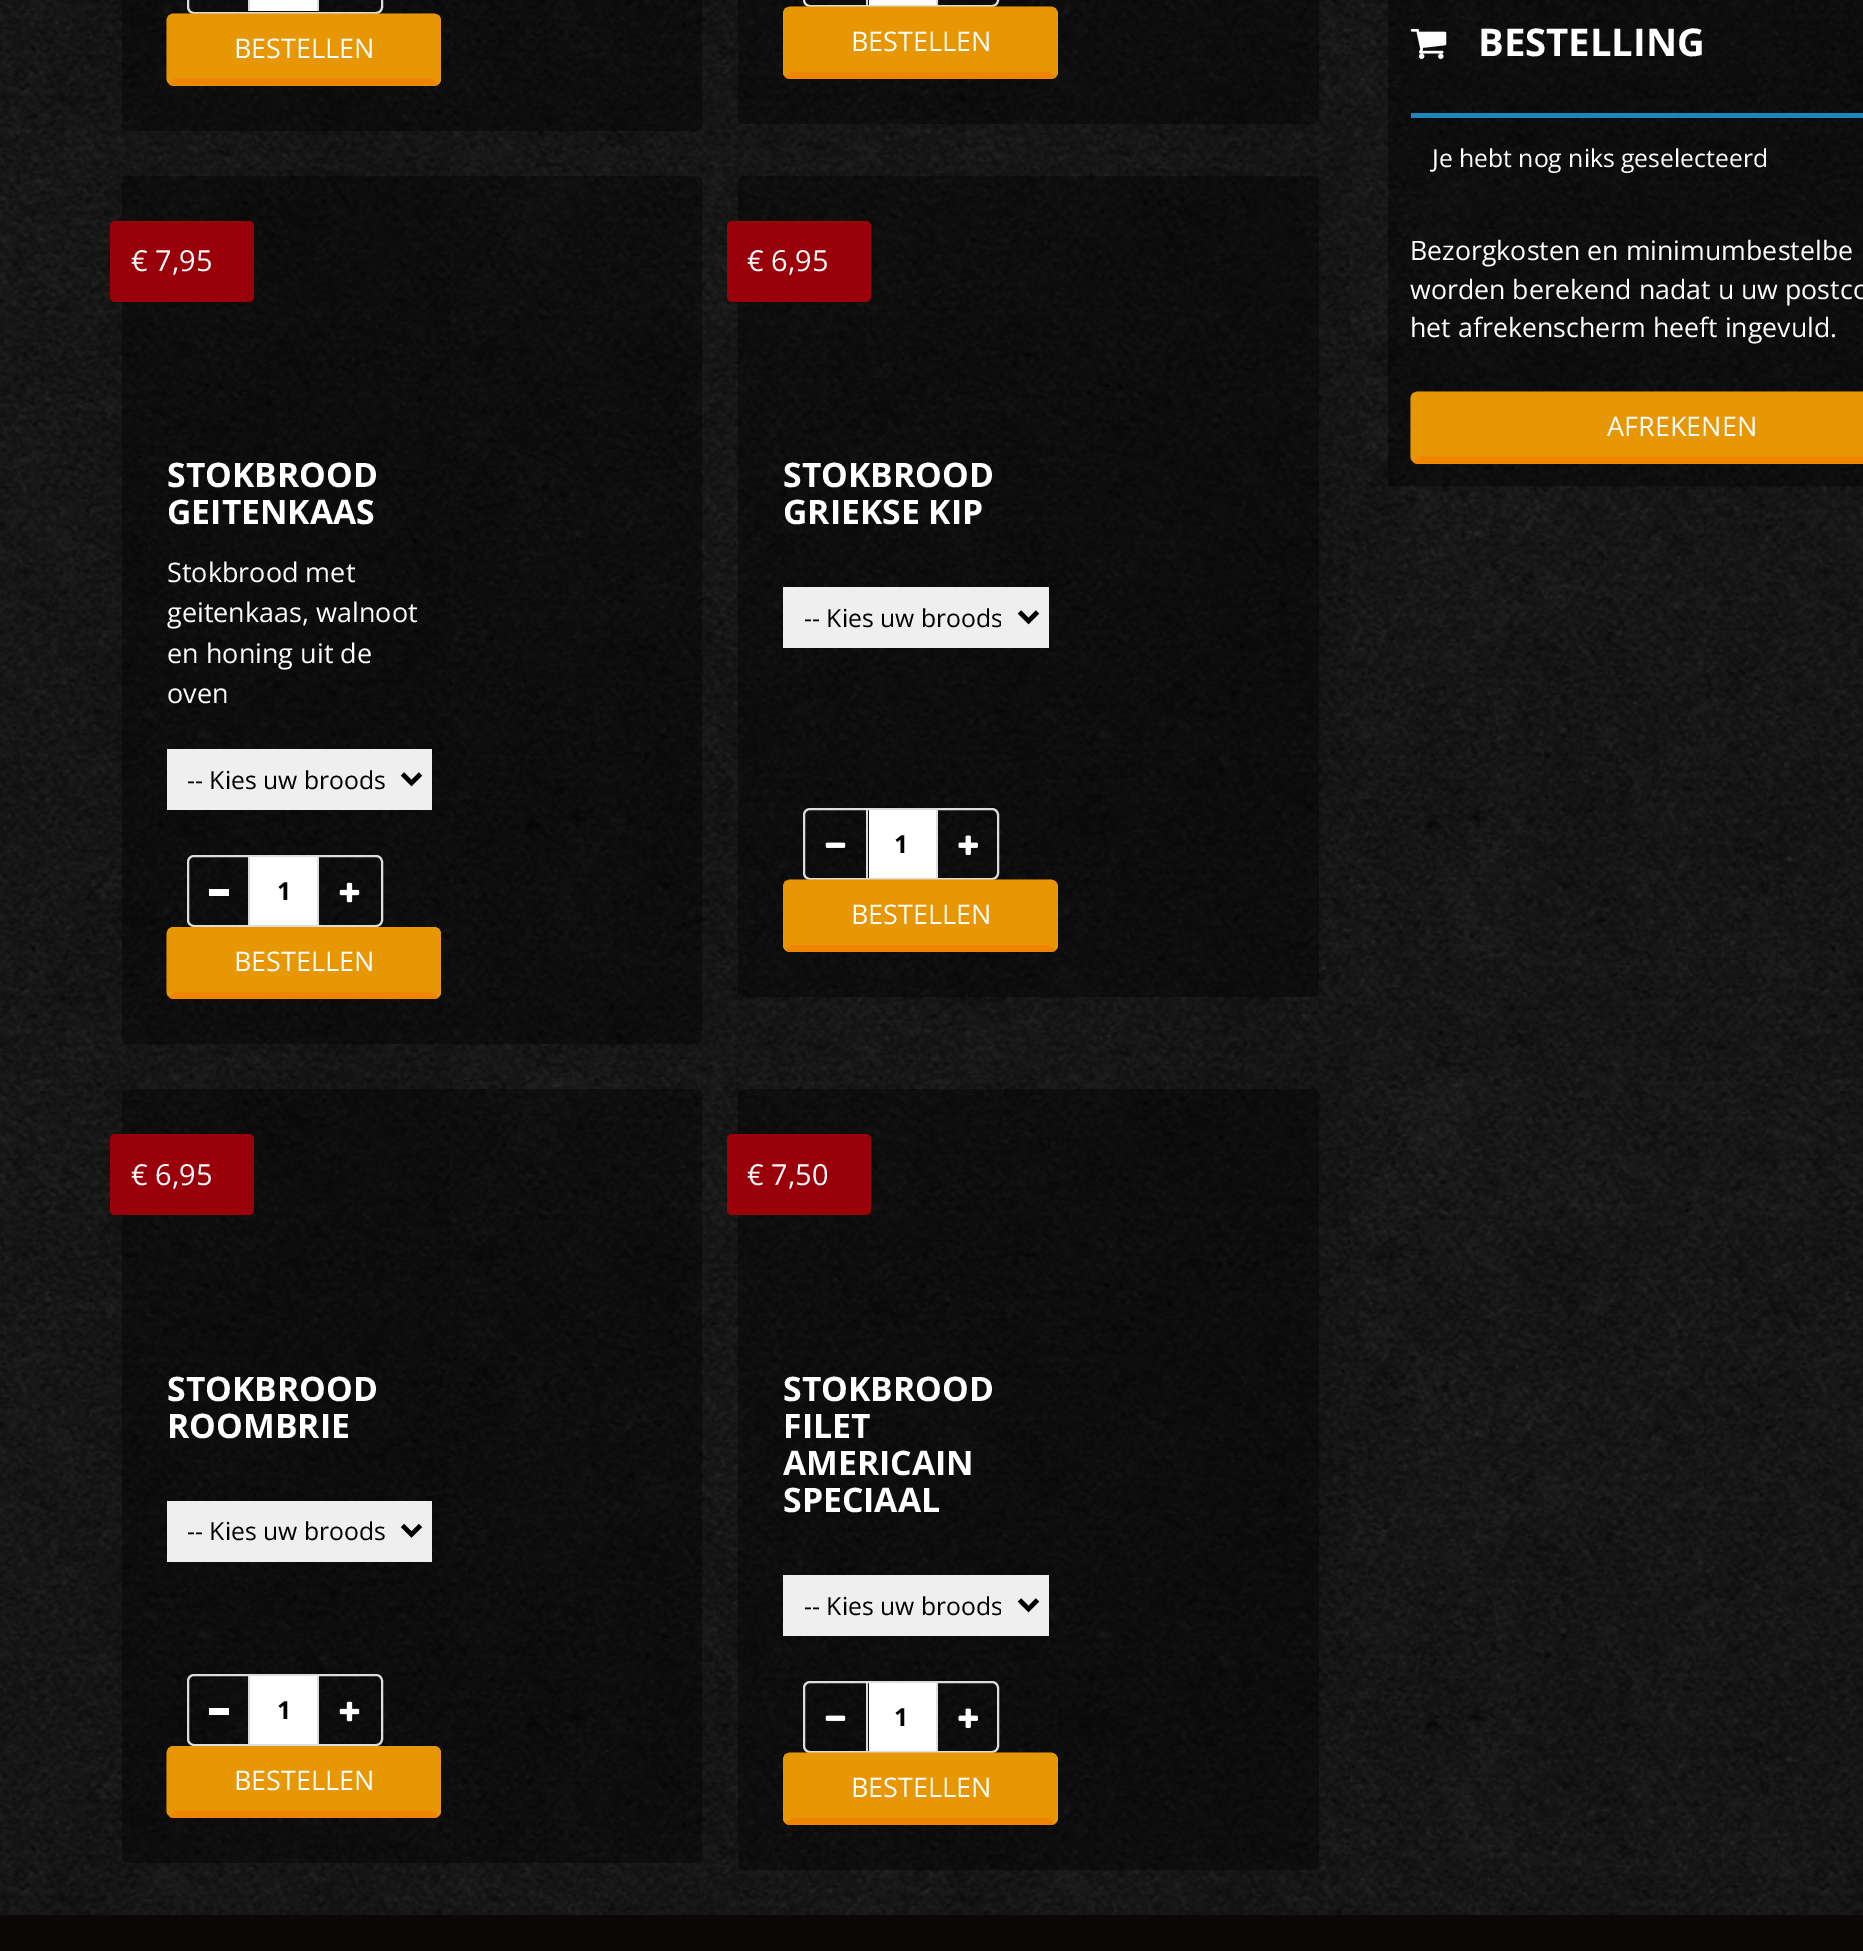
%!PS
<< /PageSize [1863 1951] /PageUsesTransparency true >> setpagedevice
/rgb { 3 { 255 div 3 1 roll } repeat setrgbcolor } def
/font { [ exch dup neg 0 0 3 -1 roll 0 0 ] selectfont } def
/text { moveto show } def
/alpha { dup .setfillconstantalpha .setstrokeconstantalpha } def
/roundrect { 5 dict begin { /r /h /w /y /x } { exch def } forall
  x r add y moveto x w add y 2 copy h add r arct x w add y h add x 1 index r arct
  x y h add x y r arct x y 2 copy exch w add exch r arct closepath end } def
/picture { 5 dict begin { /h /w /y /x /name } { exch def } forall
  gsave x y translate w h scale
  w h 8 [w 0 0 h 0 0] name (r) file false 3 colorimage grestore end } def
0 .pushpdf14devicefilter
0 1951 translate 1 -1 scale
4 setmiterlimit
255 255 255 rgb
0 0 1863 1951 rectfill
(img_01.rgb) 0 0 1863 1915 picture
0.4 alpha
0 0 0 rgb
122 -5 580 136 5 roundrect fill
1 alpha
221 221 221 rgb
2 setlinewidth
188 -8 194 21 6 roundrect stroke
248 0 2 11 rectfill
255 255 255 rgb
250 0 67 11 rectfill
221 221 221 rgb
317 0 2 11 rectfill
231 151 3 rgb
167 14 274 72 7 roundrect fill
239 132 2 rgb
6.8 setlinewidth
436.5 81 moveto -2.5 1 rlineto -261 0 rlineto -2 -1 rlineto stroke
231 151 3 rgb
171 81 moveto -1 -2 rlineto 0 -59 rlineto 1 -2 rlineto 2 -1 rlineto 261 0 rlineto 2.5 1 rlineto 1 2 rlineto 0 59 rlineto -1 2 rlineto stroke
0.4 alpha
0 0 0 rgb
738 -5 581 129 5 roundrect fill
1 alpha
221 221 221 rgb
2 setlinewidth
804 -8 194 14 6 roundrect stroke
866 0 2 5 rectfill
255 255 255 rgb
869 0 67 5 rectfill
221 221 221 rgb
936 0 2 5 rectfill
231 151 3 rgb
783 7 275 72 7 roundrect fill
239 132 2 rgb
6.8 setlinewidth
1053 74.5 moveto -2 1 rlineto -261 0 rlineto -2.5 -1 rlineto stroke
231 151 3 rgb
787.5 74.5 moveto -1 -2.5 rlineto 0 -58.5 rlineto 1 -2.5 rlineto 2.5 -1 rlineto 261 0 rlineto 2 1 rlineto 1 2.5 rlineto 0 58.5 rlineto -1 2.5 rlineto stroke
0.4 alpha
0 0 0 rgb
122 176 580 868 5 roundrect fill
1 alpha
154 0 9 rgb
110 221 144 81 5 roundrect fill
239 239 239 rgb
167 749 265 61 rectfill
0 0 0 rgb
4.5 setlinewidth
402.5 774 moveto 9 9 rlineto 9 -9 rlineto stroke
221 221 221 rgb
2 setlinewidth
188 856 194 70 6 roundrect stroke
248 857 2 68 rectfill
255 255 255 rgb
209 889 20 7 rectfill
250 857 67 68 rectfill
221 221 221 rgb
317 857 2 68 rectfill
(img_02.rgb) 339 882 21 21 picture
231 151 3 rgb
167 927 274 72 7 roundrect fill
239 132 2 rgb
6.8 setlinewidth
436.5 994.5 moveto -2.5 1 rlineto -261 0 rlineto -2 -1 rlineto stroke
231 151 3 rgb
171 994.5 moveto -1 -2.5 rlineto 0 -58 rlineto 1 -2.5 rlineto 2 -1 rlineto 261 0 rlineto 2.5 1 rlineto 1 2.5 rlineto 0 58 rlineto -1 2.5 rlineto stroke
0.4 alpha
0 0 0 rgb
738 176 581 821 5 roundrect fill
1 alpha
154 0 9 rgb
727 221 144 81 5 roundrect fill
239 239 239 rgb
783 587 266 61 rectfill
0 0 0 rgb
4.5 setlinewidth
1019.5 612 moveto 9 9 rlineto 9 -9 rlineto stroke
221 221 221 rgb
2 setlinewidth
804 809 194 70 6 roundrect stroke
866 810 2 68 rectfill
(img_03.rgb) 825 842 21 6 picture
255 255 255 rgb
869 810 67 68 rectfill
221 221 221 rgb
936 810 2 68 rectfill
(img_04.rgb) 958 835 20 20 picture
231 151 3 rgb
783 880 275 72 7 roundrect fill
239 132 2 rgb
6.8 setlinewidth
1053 947.5 moveto -2 1 rlineto -261 0 rlineto -2.5 -1 rlineto stroke
231 151 3 rgb
787.5 947.5 moveto -1 -2.5 rlineto 0 -58.5 rlineto 1 -2.5 rlineto 2.5 -1 rlineto 261 0 rlineto 2 1 rlineto 1 2.5 rlineto 0 58.5 rlineto -1 2.5 rlineto stroke
0.4 alpha
0 0 0 rgb
122 1089 580 774 5 roundrect fill
1 alpha
154 0 9 rgb
110 1134 144 81 5 roundrect fill
239 239 239 rgb
167 1501 265 61 rectfill
0 0 0 rgb
4.5 setlinewidth
402.5 1525.5 moveto 9 9 rlineto 9 -9 rlineto stroke
221 221 221 rgb
2 setlinewidth
188 1675 194 70 6 roundrect stroke
248 1676 2 68 rectfill
255 255 255 rgb
209 1708 20 7 rectfill
250 1676 67 68 rectfill
221 221 221 rgb
317 1676 2 68 rectfill
(img_05.rgb) 339 1701 21 21 picture
231 151 3 rgb
167 1746 274 72 7 roundrect fill
239 132 2 rgb
6.8 setlinewidth
436.5 1813.5 moveto -2.5 1 rlineto -261 0 rlineto -2 -1 rlineto stroke
231 151 3 rgb
171 1813.5 moveto -1 -2.5 rlineto 0 -58 rlineto 1 -2.5 rlineto 2 -1 rlineto 261 0 rlineto 2.5 1 rlineto 1 2.5 rlineto 0 58 rlineto -1 2.5 rlineto stroke
0.4 alpha
0 0 0 rgb
738 1089 581 781 5 roundrect fill
1 alpha
154 0 9 rgb
727 1134 144 81 5 roundrect fill
239 239 239 rgb
783 1575 266 61 rectfill
0 0 0 rgb
4.5 setlinewidth
1019.5 1600 moveto 9 9 rlineto 9 -9 rlineto stroke
221 221 221 rgb
2 setlinewidth
804 1682 194 70 6 roundrect stroke
866 1683 2 68 rectfill
(img_06.rgb) 825 1715 21 6 picture
255 255 255 rgb
869 1683 67 68 rectfill
221 221 221 rgb
936 1683 2 68 rectfill
(img_07.rgb) 958 1708 20 20 picture
231 151 3 rgb
783 1753 275 72 7 roundrect fill
239 132 2 rgb
6.8 setlinewidth
1053 1820.5 moveto -2 1 rlineto -261 0 rlineto -2.5 -1 rlineto stroke
231 151 3 rgb
787.5 1820.5 moveto -1 -2.5 rlineto 0 -58.5 rlineto 1 -2.5 rlineto 2.5 -1 rlineto 261 0 rlineto 2 1 rlineto 1 2.5 rlineto 0 58.5 rlineto -1 2.5 rlineto stroke
0.4 alpha
0 0 0 rgb
1388 0 475 486 rectfill
1 alpha
(img_08.rgb) 1410 28 37 31 picture
30 133 190 rgb
1411 113 452 5 rectfill
231 151 3 rgb
1411 392 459 72 7 roundrect fill
239 132 2 rgb
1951 459 moveto -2.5 1 rlineto -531 0 rlineto -2.5 -1 rlineto stroke
231 151 3 rgb
1415 459 moveto -1 -2 rlineto 0 -59 rlineto 1 -2 rlineto 2.5 -1 rlineto 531 0 rlineto 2.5 1 rlineto 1 2 rlineto 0 59 rlineto -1 2 rlineto stroke
12 7 7 rgb
0 1915 1863 36 rectfill
/OpenSans-Regular 27 font
255 255 255 rgb
(BESTELLEN) 234 58 text
(BESTELLEN) 851 51 text
/OpenSans-Regular 29 font
(€ 7,95) 131 271 text
/OpenSans-Bold 33.75 font
(STOKBROOD) 167 487 text
(GEITENKAAS) 167 524 text
/OpenSans-Regular 27 font
(Stokbrood met) 167 582 text
(geitenkaas, walnoot) 167 622 text
(en honing uit de) 167 663 text
(oven) 167 703 text
/OpenSans-Regular 24.75 font
0 0 0 rgb
(-- Kies uw broods) 187 789 text
/OpenSans-Bold 24.75 font
(1) 277 900 text
/OpenSans-Regular 27 font
255 255 255 rgb
(BESTELLEN) 234 971 text
/OpenSans-Regular 29 font
(€ 6,95) 747 271 text
/OpenSans-Bold 33.75 font
(STOKBROOD) 783 487 text
(GRIEKSE KIP) 783 524 text
gsave
803 599 198 38 rectclip
/OpenSans-Regular 24.75 font
0 0 0 rgb
(-- Kies uw broods) 804 627 text
grestore
/OpenSans-Bold 24.75 font
0 0 0 rgb
(1) 894 853 text
/OpenSans-Regular 27 font
255 255 255 rgb
(BESTELLEN) 851 924 text
/OpenSans-Regular 29 font
(€ 6,95) 131 1185 text
/OpenSans-Bold 33.75 font
(STOKBROOD) 167 1401 text
(ROOMBRIE) 167 1438 text
/OpenSans-Regular 24.75 font
0 0 0 rgb
(-- Kies uw broods) 187 1540 text
/OpenSans-Bold 24.75 font
(1) 277 1719 text
/OpenSans-Regular 27 font
255 255 255 rgb
(BESTELLEN) 234 1790 text
/OpenSans-Regular 29 font
(€ 7,50) 747 1185 text
/OpenSans-Bold 33.75 font
(STOKBROOD) 783 1401 text
(FILET) 783 1438 text
(AMERICAIN) 783 1475 text
(SPECIAAL) 783 1512 text
gsave
803 1586 198 39 rectclip
/OpenSans-Regular 24.75 font
0 0 0 rgb
(-- Kies uw broods) 804 1615 text
grestore
/OpenSans-Bold 24.75 font
0 0 0 rgb
(1) 894 1726 text
/OpenSans-Regular 27 font
255 255 255 rgb
(BESTELLEN) 851 1797 text
/OpenSans-Bold 38.25 font
(BESTELLING) 1478 56 text
/OpenSans-Regular 24.75 font
(Je hebt nog niks geselecteerd) 1432 167 text
/OpenSans-Regular 26.75 font
(Bezorgkosten en minimumbestelbe) 1410 260 text
(worden berekend nadat u uw postco) 1410 299 text
(het afrekenscherm heeft ingevuld.) 1410 337 text
/OpenSans-Regular 27 font
(AFREKENEN) 1607 436 text
.poppdf14devicefilter showpage
